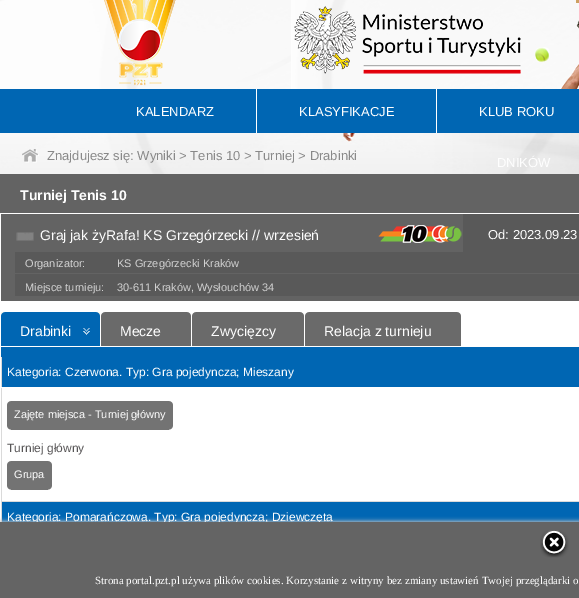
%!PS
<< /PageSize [579 598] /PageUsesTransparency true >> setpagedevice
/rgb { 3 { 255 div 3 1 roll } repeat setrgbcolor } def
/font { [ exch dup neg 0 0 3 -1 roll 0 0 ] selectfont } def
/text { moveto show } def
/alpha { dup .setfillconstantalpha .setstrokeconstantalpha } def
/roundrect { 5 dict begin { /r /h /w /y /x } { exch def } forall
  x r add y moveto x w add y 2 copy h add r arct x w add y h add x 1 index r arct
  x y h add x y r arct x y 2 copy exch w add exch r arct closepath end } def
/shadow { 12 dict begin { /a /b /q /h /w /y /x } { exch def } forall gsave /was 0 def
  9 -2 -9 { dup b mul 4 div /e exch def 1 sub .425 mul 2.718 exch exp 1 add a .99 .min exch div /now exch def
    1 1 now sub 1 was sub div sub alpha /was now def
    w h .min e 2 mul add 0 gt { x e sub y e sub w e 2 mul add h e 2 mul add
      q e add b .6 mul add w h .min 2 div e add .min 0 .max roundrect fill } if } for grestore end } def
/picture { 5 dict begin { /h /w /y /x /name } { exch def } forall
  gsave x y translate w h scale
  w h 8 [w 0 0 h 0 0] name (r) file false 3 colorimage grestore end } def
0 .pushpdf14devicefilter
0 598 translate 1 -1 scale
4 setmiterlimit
255 255 255 rgb
0 0 579 598 rectfill
(img_01.rgb) 0 0 579 174 picture
(img_02.rgb) 291 0 288 89 picture
(img_03.rgb) 104 0 72 86 picture
204 160 97 rgb
576 0 3 3 rectfill
0 102 179 rgb
0 89 579 44 rectfill
255 255 255 rgb
256 89 1 44 rectfill
436 89 1 44 rectfill
(img_04.rgb) 22 149 17 14 picture
99 99 99 rgb
0 174 579 39 rectfill
1 214 578 87 rectfill
(img_05.rgb) 16 232 18 9 picture
(img_06.rgb) 378 225 84 18 picture
89 89 89 rgb
463 214 116 38 rectfill
15 252 564 21 rectfill
15 274 564 22 rectfill
(img_07.rgb) 1 312 4 34 picture
(img_08.rgb) 96 312 4 34 picture
0 102 179 rgb
5 312 91 34 rectfill
(img_09.rgb) 83 328 7 7 picture
(img_10.rgb) 101 312 4 34 picture
(img_11.rgb) 187 312 4 34 picture
106 106 106 rgb
105 312 82 34 rectfill
(img_10.rgb) 192 312 4 34 picture
(img_11.rgb) 300 312 4 34 picture
196 312 104 34 rectfill
(img_10.rgb) 305 312 4 34 picture
(img_11.rgb) 457 312 4 34 picture
309 312 148 34 rectfill
0 102 179 rgb
1 347 578 10 rectfill
218 218 218 rgb
1 357 1 165 rectfill
0 102 179 rgb
2 357 577 30 rectfill
255 255 255 rgb
1 387 1 1 rectfill
218 218 218 rgb
1 501 578 1 rectfill
(img_12.rgb) 7 401 4 29 picture
(img_13.rgb) 169 401 4 29 picture
115 115 115 rgb
11 401 158 29 rectfill
(img_12.rgb) 7 461 4 29 picture
(img_13.rgb) 48 461 4 29 picture
11 461 37 29 rectfill
0 102 179 rgb
2 502 577 20 rectfill
193 193 193 rgb
0 521 579 76 0 2 1 shadow
/LiberationSans-Regular 13 font
254 254 254 rgb
(KALENDARZ) 136 116 text
(KLASYFIKACJE) 299 116 text
(KLUB ROKU) 479 116 text
(DNIKÓW) 497 167 text
137 137 137 rgb
(Znajdujesz się: Wyniki > Tenis 10 > Turniej > Drabinki) 47 160 text
/LiberationSans-Bold 14 font
254 254 254 rgb
(Turniej Tenis 10) 20 200 text
/LiberationSans-Regular 14 font
(Graj jak żyRafa! KS Grzegórzecki // wrzesień) 40 240 text
/LiberationSans-Regular 13 font
(Od: 2023.09.23) 488 239 text
/LiberationSans-Regular 11 font
209 209 209 rgb
(Organizator:) 25 267 text
(KS Grzegórzecki Kraków) 117 267 text
(Miejsce turnieju:) 25 291 text
(30-611 Kraków, Wysłouchów 34) 117 291 text
/LiberationSans-Regular 14 font
254 254 254 rgb
(Drabinki) 20 336 text
(Mecze) 120 336 text
(Zwycięzcy) 211 336 text
(Relacja z turnieju) 324 336 text
/LiberationSans-Regular 12 font
(Kategoria: Czerwona. Typ: Gra pojedyncza; Mieszany) 7 376 text
/LiberationSans-Regular 11 font
(Zajęte miejsca - Turniej główny) 14 418 text
/LiberationSans-Regular 12 font
87 85 86 rgb
(Turniej główny) 7 452 text
/LiberationSans-Regular 11 font
254 254 254 rgb
(Grupa) 14 478 text
/LiberationSans-Regular 12 font
(Kategoria: Pomarańczowa. Typ: Gra pojedyncza; Dziewczęta) 7 521 text
100 100 100 rgb
0 522 579 76 rectfill
(img_14.rgb) 540 530 29 28 picture
/LiberationSerif-Regular 11 font
254 254 254 rgb
(Strona portal.pzt.pl używa plików cookies. Korzystanie z witryny bez zmiany ustawień Twojej przeglądarki o) 95 584 text
.poppdf14devicefilter showpage
